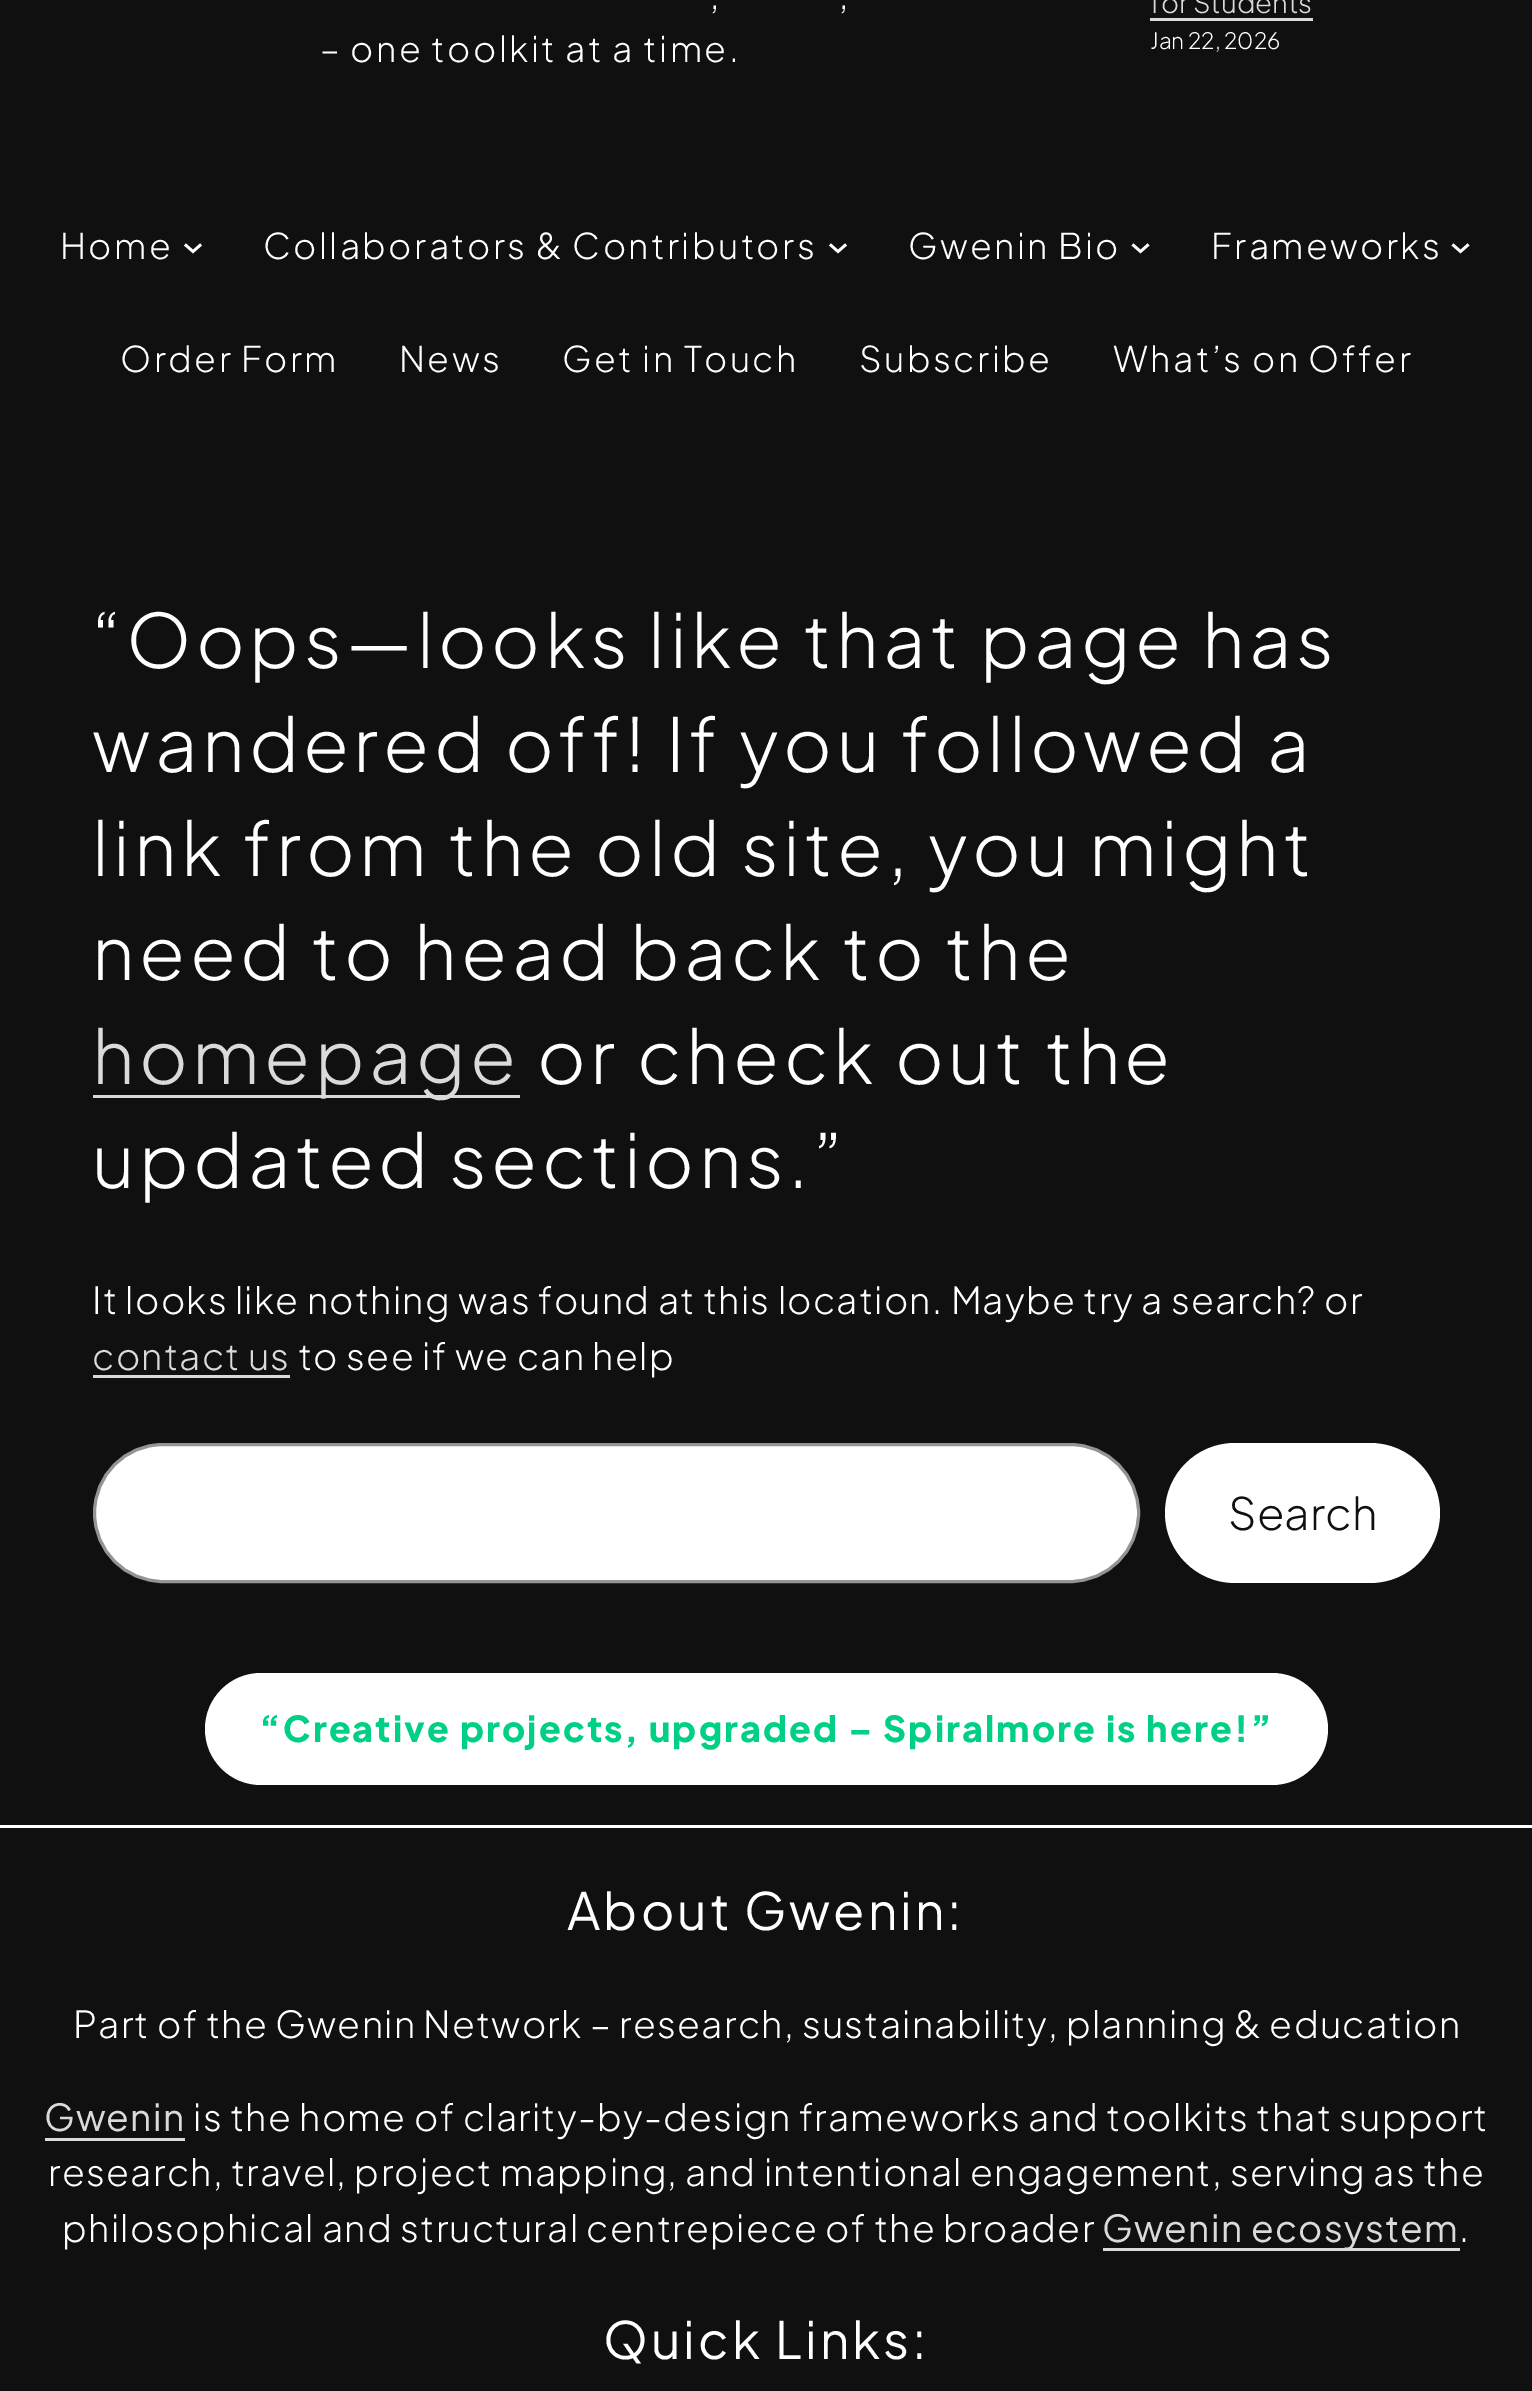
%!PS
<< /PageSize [1532 2391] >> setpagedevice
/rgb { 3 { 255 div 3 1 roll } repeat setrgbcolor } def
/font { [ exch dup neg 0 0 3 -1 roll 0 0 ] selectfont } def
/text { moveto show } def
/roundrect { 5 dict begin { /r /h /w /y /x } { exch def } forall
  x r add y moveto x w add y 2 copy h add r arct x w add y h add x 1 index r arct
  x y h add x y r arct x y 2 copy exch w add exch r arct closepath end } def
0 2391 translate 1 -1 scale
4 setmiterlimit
16 16 16 rgb
0 0 1532 2391 rectfill
218 218 218 rgb
1150 18 163 3 rectfill
255 255 255 rgb
2.7 setlinewidth
185 244.5 moveto 8 7 rlineto 8 -7 rlineto stroke
830 244.5 moveto 8 7 rlineto 8 -7 rlineto stroke
1132.5 244.5 moveto 8 7 rlineto 8 -7 rlineto stroke
1452.5 244.5 moveto 8 7 rlineto 8 -7 rlineto stroke
218 218 218 rgb
93 1095 427 3 rectfill
93 1375 197 3 rectfill
255 255 255 rgb
94.5 1444.5 1044 137 68.5 roundrect gsave fill grestore
148 148 148 rgb
3 setlinewidth
stroke
255 255 255 rgb
1165 1443 275 140 70 roundrect fill
205 1673 1123 112 56 roundrect fill
0 1825 1532 3 rectfill
218 218 218 rgb
45 2138 140 3 rectfill
1103 2248 357 3 rectfill
/PlusJakartaSans-Light 35.4 font
255 255 255 rgb
710 9 moveto 2.4 0 (,) ashow
839 9 moveto 2.4 0 (,) ashow
320 62 moveto 2.4 0 (– one toolkit at a time.) ashow
/PlusJakartaSans-Light 27.5 font
218 218 218 rgb
(for Students) 1150 13 text
/PlusJakartaSans-Light 22.5 font
255 255 255 rgb
(Jan 22, 2026) 1150 49 text
/PlusJakartaSans-Light 35.4 font
60 259 moveto 2.4 0 (Home) ashow
263 259 moveto 2.4 0 (Collaborators & Contributors) ashow
908 259 moveto 2.4 0 (Gwenin Bio) ashow
1211 259 moveto 2.4 0 (Frameworks) ashow
120 372 moveto 2.4 0 (Order Form) ashow
399 372 moveto 2.4 0 (News) ashow
562 372 moveto 2.4 0 (Get in Touch) ashow
859 372 moveto 2.4 0 (Subscribe) ashow
1113 372 moveto 2.4 0 (What’s on Offer) ashow
/PlusJakartaSans-Light 74.3 font
92 668 moveto 4.45 0 (“Oops—looks like that page has) ashow
92 772 moveto 4.45 0 (wandered off! If you followed a) ashow
92 876 moveto 4.45 0 (link from the old site, you might) ashow
92 980 moveto 4.45 0 (need to head back to the) ashow
218 218 218 rgb
92 1084 moveto 4.45 0 (homepage) ashow
255 255 255 rgb
537 1084 moveto 4.45 0 (or check out the) ashow
92 1188 moveto 4.45 0 (updated sections.”) ashow
/PlusJakartaSans-Light 37.1 font
92 1314 moveto 1.2 0 (It looks like nothing was found at this location. Maybe try a search? or) ashow
218 218 218 rgb
92 1370 moveto 1.2 0 (contact us) ashow
255 255 255 rgb
298 1370 moveto 1.2 0 (to see if we can help) ashow
/PlusJakartaSans-Light 44.5 font
16 16 16 rgb
(Search) 1228 1530 text
/PlusJakartaSans-ExtraBold 35.75 font
0 208 132 rgb
259 1742 moveto 2.15 0 (“Creative projects, upgraded – Spiralmore is here!”) ashow
/PlusJakartaSans-Regular 51.25 font
255 255 255 rgb
567 1930 moveto 3 0 (About Gwenin:) ashow
/PlusJakartaSans-Light 37.1 font
73 2038 moveto 1.2 0 (Part of the Gwenin Network – research, sustainability, planning & education) ashow
/PlusJakartaSans-Regular 37.1 font
218 218 218 rgb
44 2131 moveto 1.2 0 (Gwenin) ashow
/PlusJakartaSans-Light 37.1 font
255 255 255 rgb
193 2131 moveto 1.2 0 (is the home of clarity-by-design frameworks and toolkits that support) ashow
48 2186 moveto -0.1 0 32 1.2 0 (research, travel, project mapping, and intentional engagement, serving as the) awidthshow
62 2242 moveto 1.2 0 (philosophical and structural centrepiece of the broader) ashow
/PlusJakartaSans-Regular 37.1 font
218 218 218 rgb
1102 2242 moveto 1.2 0 (Gwenin ecosystem) ashow
/PlusJakartaSans-Light 37.1 font
255 255 255 rgb
1459 2242 moveto 1.2 0 (.) ashow
/PlusJakartaSans-Regular 51.25 font
603 2359 moveto 3 0 (Quick Links:) ashow
showpage
